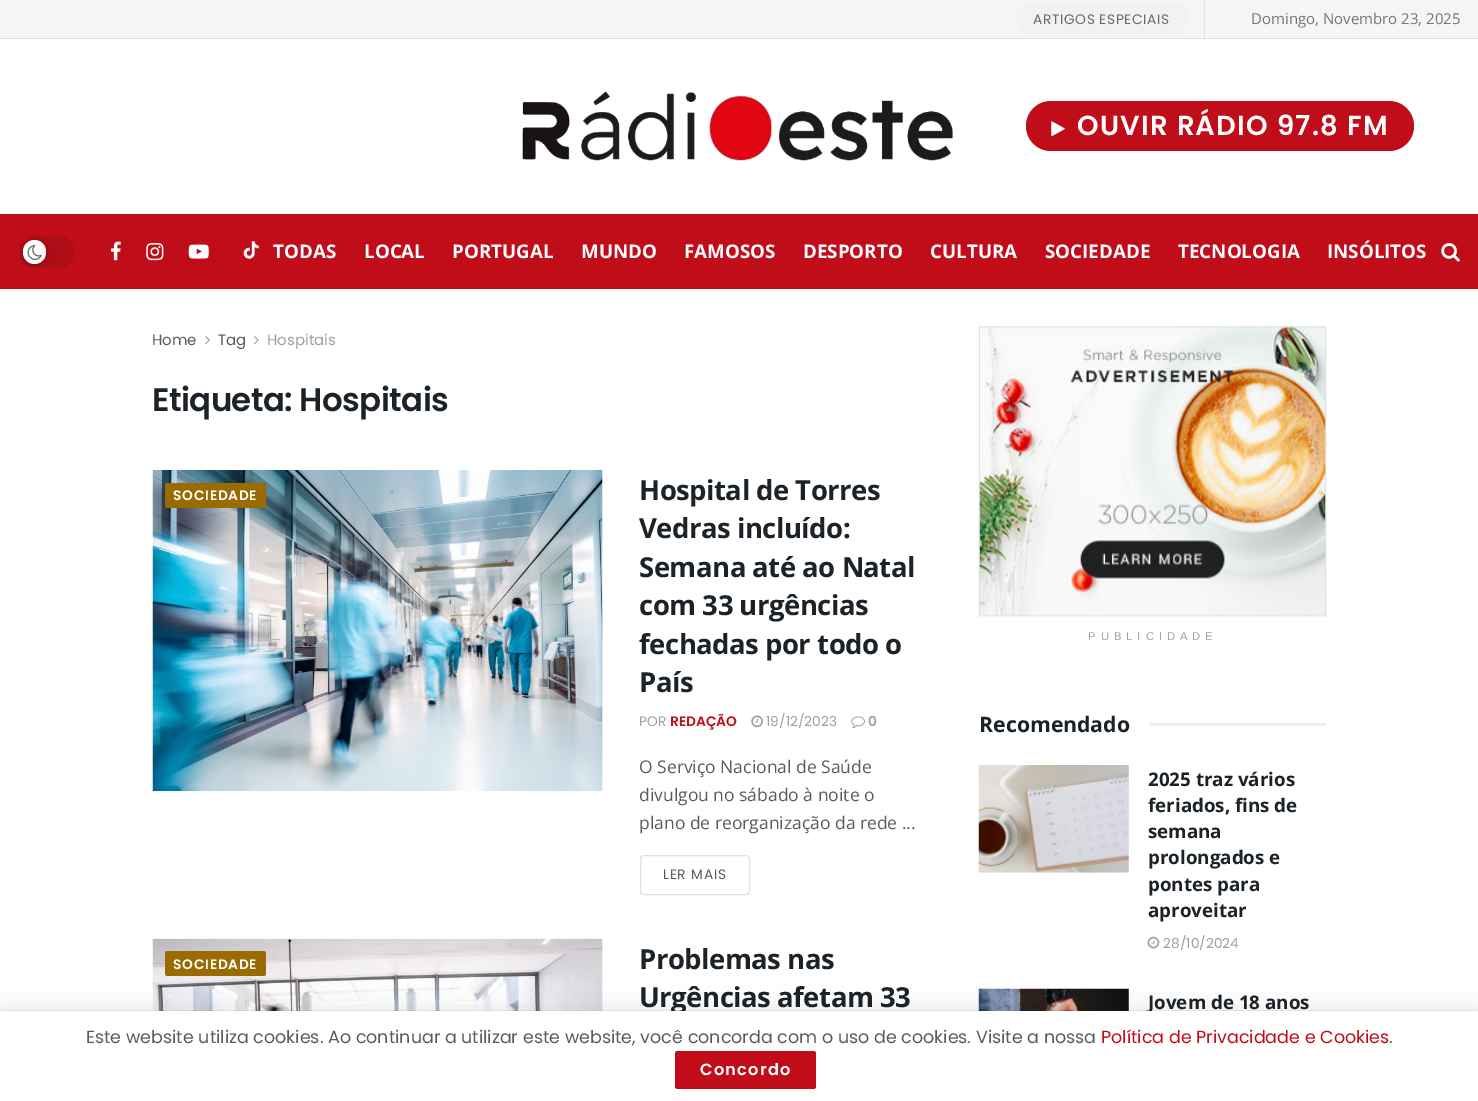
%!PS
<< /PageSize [1478 1101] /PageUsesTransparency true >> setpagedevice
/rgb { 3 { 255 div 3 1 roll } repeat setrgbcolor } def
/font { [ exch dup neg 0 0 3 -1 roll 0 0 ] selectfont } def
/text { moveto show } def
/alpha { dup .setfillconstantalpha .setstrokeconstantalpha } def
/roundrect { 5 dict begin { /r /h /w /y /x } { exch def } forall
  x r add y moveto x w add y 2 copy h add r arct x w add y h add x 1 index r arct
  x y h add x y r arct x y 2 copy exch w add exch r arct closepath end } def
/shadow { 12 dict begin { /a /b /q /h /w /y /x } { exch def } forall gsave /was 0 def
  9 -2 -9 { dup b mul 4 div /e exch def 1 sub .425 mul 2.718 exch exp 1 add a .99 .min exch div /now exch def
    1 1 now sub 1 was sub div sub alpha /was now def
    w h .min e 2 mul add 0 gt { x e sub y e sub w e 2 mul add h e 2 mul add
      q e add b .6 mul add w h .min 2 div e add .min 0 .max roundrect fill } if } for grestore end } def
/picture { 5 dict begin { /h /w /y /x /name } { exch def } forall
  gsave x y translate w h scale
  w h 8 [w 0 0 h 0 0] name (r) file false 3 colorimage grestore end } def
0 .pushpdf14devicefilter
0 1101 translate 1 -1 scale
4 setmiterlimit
255 255 255 rgb
0 0 1478 1101 rectfill
245 245 245 rgb
0 0 1478 38 rectfill
224 224 224 rgb
0 38 1478 1 rectfill
1204 0 1 38 rectfill
242 242 242 rgb
1016 3 173 32 16 roundrect fill
(img_01.rgb) 522 91 431 70 picture
193 13 25 rgb
1026 101 388 50 25 roundrect fill
(img_02.rgb) 1051 121 14 16 picture
0 214 1478 75 rectfill
174 12 23 rgb
19 236 56 32 16 roundrect fill
0 0 0 rgb
23 241 23 24 11.5 2 0.3 shadow
255 255 255 rgb
23 240 23 24 11.5 roundrect fill
(img_03.rgb) 27 245 15 15 picture
(img_04.rgb) 111 241 10 20 picture
(img_05.rgb) 146 243 18 18 picture
(img_06.rgb) 188 244 21 15 picture
(img_07.rgb) 243 241 16 18 picture
(img_08.rgb) 1441 243 19 19 picture
(img_09.rgb) 205 336 5 9 picture
(img_10.rgb) 253 336 6 9 picture
247 247 247 rgb
602 470 1 321 rectfill
(img_11.rgb) 152 470 451 322 picture
153 107 0 rgb
165 483 101 25 2.5 roundrect fill
(img_12.rgb) 751 715 12 13 picture
(img_13.rgb) 851 716 14 13 picture
224 224 224 rgb
640.5 855.5 109 39 3.5 roundrect stroke
247 247 247 rgb
602 939 1 72 rectfill
(img_14.rgb) 152 938 451 73 picture
153 107 0 rgb
165 951 101 25 2.5 roundrect fill
(img_15.rgb) 978 326 349 291 picture
238 238 238 rgb
1149 723 177 3 rectfill
247 247 247 rgb
979 765 150 108 rectfill
(img_16.rgb) 978 765 151 108 picture
(img_17.rgb) 1147 936 13 13 picture
(img_18.rgb) 978 988 151 23 picture
0 0 0 rgb
0 1014 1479 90 0 12.5 0.15 shadow
0 1011 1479 90 0 0.5 0.2 shadow
/Poppins-Regular 13.75 font
104 104 104 rgb
1033 24 moveto 0.6 0 (ARTIGOS ESPECIAIS) ashow
/OpenSans-Regular 15 font
117 117 117 rgb
(Domingo, Novembro 23, 2025) 1251 24 text
/Poppins-SemiBold 27.5 font
255 255 255 rgb
1077 135 moveto 1.25 0 (OUVIR RÁDIO 97.8 FM) ashow
/OpenSans-Bold 18.75 font
(TODAS) 273 258 text
(LOCAL) 364 258 text
(PORTUGAL) 452 258 text
(MUNDO) 581 258 text
(FAMOSOS) 684 258 text
(DESPORTO) 803 258 text
(CULTURA) 930 258 text
(SOCIEDADE) 1045 258 text
(TECNOLOGIA) 1178 258 text
(INSÓLITOS) 1327 258 text
/Poppins-Regular 15 font
89 92 95 rgb
(Home) 152 345 text
(Tag) 218 345 text
160 160 160 rgb
(Hospitais) 267 345 text
/Poppins-SemiBold 32.5 font
27 34 40 rgb
152 411 moveto -0.6 0 (Etiqueta: Hospitais) ashow
/Poppins-SemiBold 13.75 font
255 255 255 rgb
173 500 moveto 0.75 0 (SOCIEDADE) ashow
/OpenSans-Bold 27.5 font
27 34 40 rgb
639 500 moveto -0.5 0 (Hospital de Torres) ashow
639 538 moveto -0.5 0 (Vedras incluído:) ashow
639 577 moveto -0.5 0 (Semana até ao Natal) ashow
639 615 moveto -0.5 0 (com 33 urgências) ashow
639 654 moveto -0.5 0 (fechadas por todo o) ashow
639 692 moveto -0.5 0 (País) ashow
/Poppins-Regular 13.75 font
160 160 160 rgb
(POR) 639 726 text
/Poppins-SemiBold 13.75 font
193 13 25 rgb
(REDAÇÃO) 670 726 text
/Poppins-Regular 13.75 font
160 160 160 rgb
(19/12/2023) 766 726 text
/Poppins-SemiBold 13.75 font
(0) 868 726 text
/OpenSans-Regular 17.5 font
89 92 95 rgb
(O Serviço Nacional de Saúde) 639 773 text
(divulgou no sábado à noite o) 639 801 text
(plano de reorganização da rede ...) 639 829 text
/Poppins-Regular 13.75 font
663 879 moveto 0.75 0 (LER MAIS) ashow
/Poppins-SemiBold 13.75 font
255 255 255 rgb
173 969 moveto 0.75 0 (SOCIEDADE) ashow
/OpenSans-Bold 27.5 font
27 34 40 rgb
639 969 moveto -0.5 0 (Problemas nas) ashow
639 1007 moveto -0.5 0 (Urgências afetam 33) ashow
/LiberationSans-Regular 11.25 font
160 160 160 rgb
1088 640 moveto 5 0 (PUBLICIDADE) ashow
/OpenSans-Bold 21.25 font
27 34 40 rgb
(Recomendado) 979 732 text
/OpenSans-Bold 18.75 font
(2025 traz vários) 1148 786 text
(feriados, fins de) 1148 812 text
(semana) 1148 838 text
(prolongados e) 1148 864 text
(pontes para) 1148 891 text
(aproveitar) 1148 917 text
/Poppins-Regular 13.75 font
160 160 160 rgb
(28/10/2024) 1163 948 text
/OpenSans-Bold 18.75 font
27 34 40 rgb
(Jovem de 18 anos) 1148 1009 text
255 255 255 rgb
0 1011 1478 90 rectfill
/Poppins-Regular 17.5 font
89 92 95 rgb
(Este website utiliza cookies. Ao continuar a utilizar este website, você concorda com o uso de cookies. Visite a nossa) 86 1043 text
193 13 25 rgb
(Política de Privacidade e Cookies) 1101 1043 text
89 92 95 rgb
(.) 1389 1043 text
193 13 25 rgb
675 1051 141 38 2.5 roundrect fill
/Poppins-SemiBold 16.25 font
255 255 255 rgb
700 1075 moveto 1.25 0 (Concordo) ashow
.poppdf14devicefilter showpage
